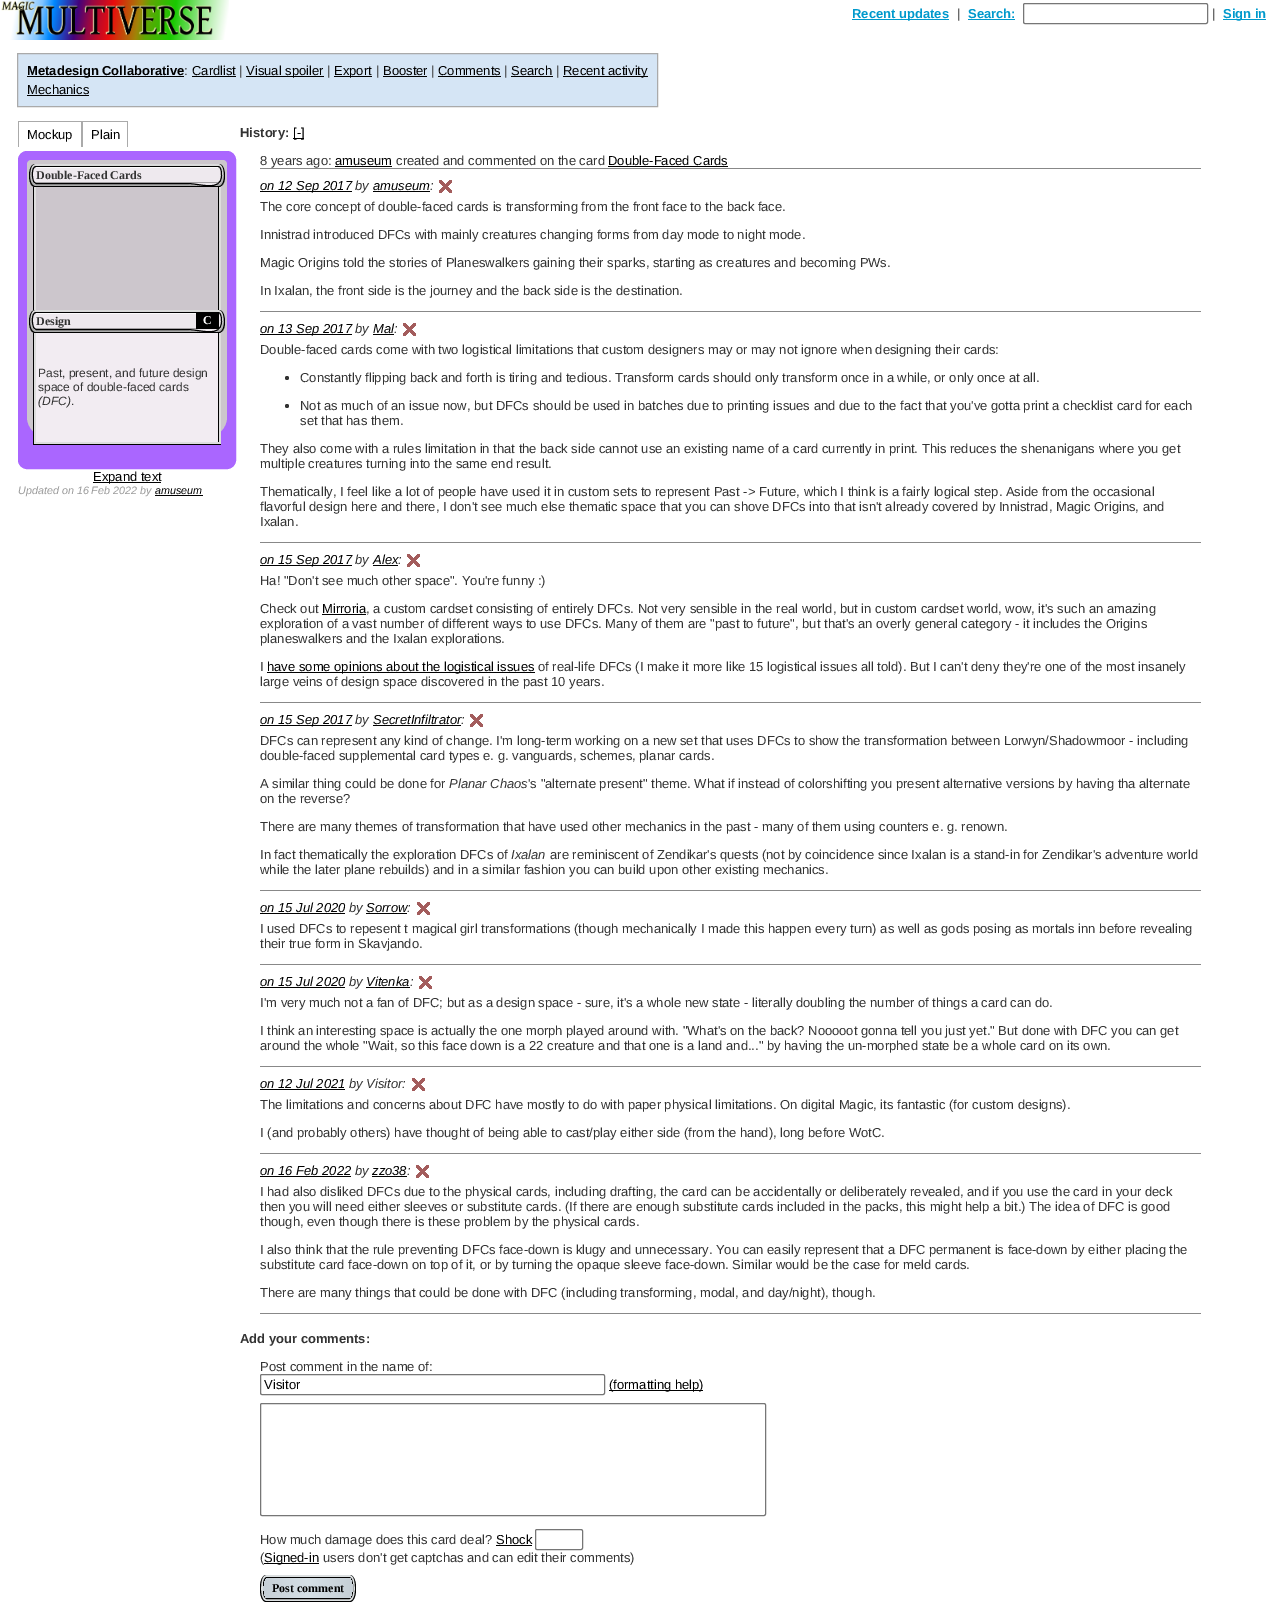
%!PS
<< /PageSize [1279 1605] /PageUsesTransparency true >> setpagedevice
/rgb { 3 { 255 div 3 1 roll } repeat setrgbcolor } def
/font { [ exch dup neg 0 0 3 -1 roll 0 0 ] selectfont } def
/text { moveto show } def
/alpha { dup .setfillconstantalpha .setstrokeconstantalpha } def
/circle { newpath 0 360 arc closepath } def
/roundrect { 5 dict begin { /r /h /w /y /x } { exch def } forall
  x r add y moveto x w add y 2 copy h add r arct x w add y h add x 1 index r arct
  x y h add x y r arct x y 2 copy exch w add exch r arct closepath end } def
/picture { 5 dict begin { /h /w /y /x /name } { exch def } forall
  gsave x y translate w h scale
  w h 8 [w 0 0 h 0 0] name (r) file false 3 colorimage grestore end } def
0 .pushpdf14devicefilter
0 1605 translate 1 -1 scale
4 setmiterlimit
255 255 255 rgb
0 0 1279 1605 rectfill
(img_01.rgb) 1 0 228 40 picture
0 153 204 rgb
852 19 97 1 rectfill
968 19 47 1 rectfill
118 118 118 rgb
1023.5 3.5 184 20 1.5 roundrect stroke
0 153 204 rgb
1223 19 43 1 rectfill
213 229 245 rgb
17.5 53.5 moveto 640 0 rlineto 0 53 rlineto -640 0 rlineto closepath gsave fill grestore
170 170 170 rgb
stroke
0 0 0 rgb
27 76 157 1 rectfill
192 76 44 1 rectfill
246 76 78 1 rectfill
334 76 38 1 rectfill
383 76 44 1 rectfill
438 76 63 1 rectfill
511 76 42 1 rectfill
563 76 85 1 rectfill
27 95 62 1 rectfill
170 170 170 rgb
18 121 110 1 rectfill
81 121 2 26 rectfill
18 121 1 26 rectfill
127 121 1 26 rectfill
170 102 255 rgb
18.5 151.5 217 317 8.5 roundrect gsave fill grestore
stroke
204 198 204 rgb
31 160 moveto 192 0 rlineto 2 0 4 2 4 4 rcurveto 0 253 rlineto 0 11 -9 20 -20 20 rcurveto -160 0 rlineto -11 0 -20 -9 -20 -20 rcurveto 0 -253 rlineto 0 -2 2 -4 4 -4 rcurveto closepath fill
gsave 35 164 moveto 184 0 rlineto 3 0 6 5 6 12 rcurveto 0 4 -1 8 -3 10 rcurveto -190 0 rlineto -4 -4 -5 -22 3 -22 rcurveto closepath clip newpath
<< /ShadingType 2 /ColorSpace /DeviceRGB /Coords [127 164 127 186] /Extend [true true] /Function << /FunctionType 2 /Domain [0 1] /C0 [0.867 0.867 0.867] /C1 [0.667 0.667 0.667] /N 1 >> >> shfill grestore
0 0 0 rgb
35 164 moveto 184 0 rlineto 5 0 6 8 6 12 rcurveto 0 19 -20 11 -37 11 rcurveto -153 0 rlineto -8 0 -8 -23 0 -23 rcurveto closepath 35 164 moveto 184 0 rlineto 3 0 5 5 5 12 rcurveto 0 5 -2 10 -5 10 rcurveto -184 0 rlineto -3 0 -5 -5 -5 -10 rcurveto 0 -7 2 -12 5 -12 rcurveto closepath eofill
238 233 238 rgb
36 166 moveto 183 0 rlineto 2 1 3 4 3 6 rcurveto 2 21 -16 12 -34 12 rcurveto -152 0 rlineto -1 0 -2 -1 -3 -2 rcurveto -1 -3 -2 -16 3 -16 rcurveto closepath fill
0 0 0 rgb
36 166.5 moveto 182.5 0 rlineto 1 0.5 rlineto 2 2 2 6 2 9 rcurveto -0.5 16 -22 7.5 -34 7.5 rcurveto -151.5 0 rlineto -2 -1.5 rlineto -2 -2.5 -3 -15.5 2 -15.5 rcurveto closepath stroke
252 251 252 rgb
36 167 182 1 rectfill
0.5 alpha
88 88 88 rgb
36 182 182 1 rectfill
1 alpha
221 221 221 rgb
34 187 187 123 rectfill
0 0 0 rgb
33 187 1 123 rectfill
204 198 204 rgb
36 187 182 123 rectfill
0 0 0 rgb
218 187 1 123 rectfill
gsave 35 310 moveto 184 0 rlineto 3 0 6 5 6 12 rcurveto 0 4 -1 8 -3 10 rcurveto -190 0 rlineto -4 -4 -5 -22 3 -22 rcurveto closepath clip newpath
<< /ShadingType 2 /ColorSpace /DeviceRGB /Coords [127 310 127 332] /Extend [true true] /Function << /FunctionType 2 /Domain [0 1] /C0 [0.867 0.867 0.867] /C1 [0.667 0.667 0.667] /N 1 >> >> shfill grestore
35 310 moveto 184 0 rlineto 5 0 6 8 6 12 rcurveto 0 19 -20 11 -37 11 rcurveto -153 0 rlineto -8 0 -8 -23 0 -23 rcurveto closepath 35 310 moveto 184 0 rlineto 3 0 5 5 5 12 rcurveto 0 5 -2 10 -5 10 rcurveto -184 0 rlineto -3 0 -5 -5 -5 -10 rcurveto 0 -7 2 -12 5 -12 rcurveto closepath eofill
238 233 238 rgb
36 312 moveto 183 0 rlineto 2 1 3 4 3 6 rcurveto 2 21 -16 12 -34 12 rcurveto -152 0 rlineto -1 0 -2 -1 -3 -2 rcurveto -1 -3 -2 -16 3 -16 rcurveto closepath fill
0 0 0 rgb
36 312.5 moveto 182.5 0 rlineto 1 0.5 rlineto 2 2 2 6 2 9 rcurveto -0.5 16 -22 7.5 -34 7.5 rcurveto -151.5 0 rlineto -2 -1.5 rlineto -2 -2.5 -3 -15.5 2 -15.5 rcurveto closepath stroke
252 251 252 rgb
36 313 160 1 rectfill
0 0 0 rgb
196 312 23 17 rectfill
0.5 alpha
88 88 88 rgb
36 328 160 1 rectfill
1 alpha
221 221 221 rgb
34 333 187 111 rectfill
0 0 0 rgb
33 444 188 1 rectfill
33 333 1 112 rectfill
242 236 242 rgb
36 333 182 109 rectfill
0 0 0 rgb
218 333 1 109 rectfill
93 482 68 1 rectfill
155 495 48 1 rectfill
293 138 11 1 rectfill
136 136 136 rgb
260 168 941 1 rectfill
0 0 0 rgb
335 166 57 1 rectfill
608 166 120 1 rectfill
136 136 136 rgb
260 311 941 1 rectfill
0 0 0 rgb
260 191 92 1 rectfill
373 191 57 1 rectfill
(img_02.rgb) 439 180 13 13 picture
136 136 136 rgb
260 542 941 1 rectfill
0 0 0 rgb
260 334 92 1 rectfill
373 334 21 1 rectfill
(img_02.rgb) 403 323 13 13 picture
51 51 51 rgb
287 378 2 circle fill
287 406 2 circle fill
136 136 136 rgb
260 702 941 1 rectfill
0 0 0 rgb
260 565 92 1 rectfill
373 565 25 1 rectfill
(img_02.rgb) 407 554 13 13 picture
322 614 44 1 rectfill
267 672 268 1 rectfill
136 136 136 rgb
260 890 941 1 rectfill
0 0 0 rgb
260 725 92 1 rectfill
373 725 88 1 rectfill
(img_02.rgb) 470 714 13 13 picture
136 136 136 rgb
260 964 941 1 rectfill
0 0 0 rgb
260 913 85 1 rectfill
366 913 41 1 rectfill
(img_02.rgb) 417 902 13 13 picture
136 136 136 rgb
260 1066 941 1 rectfill
0 0 0 rgb
260 987 85 1 rectfill
366 987 44 1 rectfill
(img_02.rgb) 419 976 13 13 picture
136 136 136 rgb
260 1153 941 1 rectfill
0 0 0 rgb
260 1089 85 1 rectfill
(img_02.rgb) 412 1078 13 13 picture
136 136 136 rgb
260 1313 941 1 rectfill
0 0 0 rgb
260 1176 91 1 rectfill
372 1176 35 1 rectfill
(img_02.rgb) 416 1165 13 13 picture
118 118 118 rgb
260.5 1374.5 344 20 1.5 roundrect stroke
0 0 0 rgb
609 1390 94 1 rectfill
118 118 118 rgb
260.5 1403.5 505 112 1.5 roundrect stroke
0 0 0 rgb
496 1545 36 1 rectfill
118 118 118 rgb
535.5 1529.5 47 20 1.5 roundrect stroke
219 223 224 rgb
266 1575 moveto 84 0 rlineto 3 0 6 5 6 12 rcurveto 0 3 rlineto 0 7 -3 12 -6 12 rcurveto -84 0 rlineto -3 0 -6 -5 -6 -12 rcurveto 0 -3 rlineto 0 -7 3 -12 6 -12 rcurveto closepath fill
0 0 0 rgb
266 1575 moveto 84 0 rlineto 3 0 6 5 6 12 rcurveto 0 3 rlineto 0 7 -3 12 -6 12 rcurveto -84 0 rlineto -3 0 -6 -5 -6 -12 rcurveto 0 -3 rlineto 0 -7 3 -12 6 -12 rcurveto closepath 266 1575 moveto 84 0 rlineto 3 0 5 5 5 12 rcurveto 0 3 rlineto 0 6 -2 11 -5 11 rcurveto -84 0 rlineto -3 0 -5 -5 -5 -11 rcurveto 0 -3 rlineto 0 -7 2 -12 5 -12 rcurveto closepath eofill
267 1577.5 moveto 82 0 rlineto 2 0 3.5 3.5 3.5 7.5 rcurveto 0 6 rlineto 0 4 -1.5 7.5 -3.5 7.5 rcurveto -82 0 rlineto -2 0 -3.5 -3.5 -3.5 -7.5 rcurveto 0 -6 rlineto 0 -4 1.5 -7.5 3.5 -7.5 rcurveto closepath stroke
gsave 268 1578 moveto 81 0 rlineto 2 1 3 4 3 6 rcurveto 0 4 1 12 -3 14 rcurveto -81 0 rlineto -6 0 -5 -20 0 -20 rcurveto closepath clip newpath
<< /ShadingType 2 /ColorSpace /DeviceRGB /Coords [264 1588 352 1588] /Extend [true true] /Function << /FunctionType 3 /Domain [0 1] /Functions [<< /FunctionType 2 /Domain [0 1] /C0 [0.776 0.812 0.839] /C1 [0.839 0.878 0.902] /N 1 >> << /FunctionType 2 /Domain [0 1] /C0 [0.839 0.878 0.902] /C1 [0.776 0.812 0.839] /N 1 >>] /Bounds [0.5] /Encode [0 1 0 1] >> >> shfill grestore
/LiberationSans-Bold 13 font
0 153 204 rgb
(Recent updates) 852 18 text
/LiberationSans-Regular 13 font
51 51 51 rgb
(|) 957 18 text
/LiberationSans-Bold 13 font
0 153 204 rgb
(Search:) 968 18 text
/LiberationSans-Regular 13 font
51 51 51 rgb
(|) 1212 18 text
/LiberationSans-Bold 13 font
0 153 204 rgb
(Sign in) 1223 18 text
0 0 0 rgb
(Metadesign Collaborative) 27 75 text
/LiberationSans-Regular 13 font
51 51 51 rgb
(:) 184 75 text
0 0 0 rgb
(Cardlist) 192 75 text
51 51 51 rgb
(|) 239 75 text
0 0 0 rgb
(Visual spoiler) 246 75 text
51 51 51 rgb
(|) 327 75 text
0 0 0 rgb
(Export) 334 75 text
51 51 51 rgb
(|) 376 75 text
0 0 0 rgb
(Booster) 383 75 text
51 51 51 rgb
(|) 431 75 text
0 0 0 rgb
(Comments) 438 75 text
51 51 51 rgb
(|) 504 75 text
0 0 0 rgb
(Search) 511 75 text
51 51 51 rgb
(|) 556 75 text
0 0 0 rgb
(Recent activity) 563 75 text
(Mechanics) 27 94 text
(Mockup) 27 139 text
(Plain) 91 139 text
/LiberationSerif-Bold 12 font
51 51 51 rgb
(Double-Faced Cards) 36 179 text
(Design) 36 325 text
255 255 255 rgb
(C) 203 324 text
/LiberationSans-Regular 12 font
51 51 51 rgb
(Past, present, and future design) 38 377 text
(space of double-faced cards) 38 391 text
/LiberationSans-Italic 12 font
(\(DFC\)) 38 405 text
/LiberationSans-Regular 12 font
(.) 71 405 text
/LiberationSans-Regular 13 font
0 0 0 rgb
(Expand text) 93 481 text
/LiberationSans-Italic 10.75 font
153 153 153 rgb
(Updated on 16 Feb 2022 by) 18 494 text
0 0 0 rgb
(amuseum) 155 494 text
/LiberationSans-Bold 13 font
51 51 51 rgb
(History:) 240 137 text
/LiberationSans-Regular 13 font
0 0 0 rgb
([-]) 293 137 text
51 51 51 rgb
(8 years ago:) 260 165 text
0 0 0 rgb
(amuseum) 335 165 text
51 51 51 rgb
(created and commented on the card) 396 165 text
0 0 0 rgb
(Double-Faced Cards) 608 165 text
/LiberationSans-Italic 13 font
(on 12 Sep 2017) 260 190 text
51 51 51 rgb
(by) 355 190 text
0 0 0 rgb
(amuseum) 373 190 text
51 51 51 rgb
(:) 430 190 text
/LiberationSans-Regular 13 font
(The core concept of double-faced cards is transforming from the front face to the back face.) 260 211 text
(Innistrad introduced DFCs with mainly creatures changing forms from day mode to night mode.) 260 239 text
(Magic Origins told the stories of Planeswalkers gaining their sparks, starting as creatures and becoming PWs.) 260 267 text
(In Ixalan, the front side is the journey and the back side is the destination.) 260 295 text
/LiberationSans-Italic 13 font
0 0 0 rgb
(on 13 Sep 2017) 260 333 text
51 51 51 rgb
(by) 355 333 text
0 0 0 rgb
(Mal) 373 333 text
51 51 51 rgb
(:) 394 333 text
/LiberationSans-Regular 13 font
(Double-faced cards come with two logistical limitations that custom designers may or may not ignore when designing their cards:) 260 354 text
(Constantly flipping back and forth is tiring and tedious. Transform cards should only transform once in a while, or only once at all.) 300 382 text
(Not as much of an issue now, but DFCs should be used in batches due to printing issues and due to the fact that you've gotta print a checklist card for each) 300 410 text
(set that has them.) 300 425 text
(They also come with a rules limitation in that the back side cannot use an existing name of a card currently in print. This reduces the shenanigans where you get) 260 453 text
(multiple creatures turning into the same end result.) 260 468 text
(Thematically, I feel like a lot of people have used it in custom sets to represent Past -> Future, which I think is a fairly logical step. Aside from the occasional) 260 496 text
(flavorful design here and there, I don't see much else thematic space that you can shove DFCs into that isn't already covered by Innistrad, Magic Origins, and) 260 511 text
(Ixalan.) 260 526 text
/LiberationSans-Italic 13 font
0 0 0 rgb
(on 15 Sep 2017) 260 564 text
51 51 51 rgb
(by) 355 564 text
0 0 0 rgb
(Alex) 373 564 text
51 51 51 rgb
(:) 398 564 text
/LiberationSans-Regular 13 font
(Ha! "Don't see much other space". You're funny :\)) 260 585 text
(Check out) 260 613 text
0 0 0 rgb
(Mirroria) 322 613 text
51 51 51 rgb
(, a custom cardset consisting of entirely DFCs. Not very sensible in the real world, but in custom cardset world, wow, it's such an amazing) 366 613 text
(exploration of a vast number of different ways to use DFCs. Many of them are "past to future", but that's an overly general category - it includes the Origins) 260 628 text
(planeswalkers and the Ixalan explorations.) 260 643 text
(I) 260 671 text
0 0 0 rgb
(have some opinions about the logistical issues) 267 671 text
51 51 51 rgb
(of real-life DFCs \(I make it more like 15 logistical issues all told\). But I can't deny they're one of the most insanely) 538 671 text
(large veins of design space discovered in the past 10 years.) 260 686 text
/LiberationSans-Italic 13 font
0 0 0 rgb
(on 15 Sep 2017) 260 724 text
51 51 51 rgb
(by) 355 724 text
0 0 0 rgb
(SecretInfiltrator) 373 724 text
51 51 51 rgb
(:) 461 724 text
/LiberationSans-Regular 13 font
(DFCs can represent any kind of change. I'm long-term working on a new set that uses DFCs to show the transformation between Lorwyn/Shadowmoor - including) 260 745 text
(double-faced supplemental card types e. g. vanguards, schemes, planar cards.) 260 760 text
(A similar thing could be done for) 260 788 text
/LiberationSans-Italic 13 font
(Planar Chaos) 449 788 text
/LiberationSans-Regular 13 font
('s "alternate present" theme. What if instead of colorshifting you present alternative versions by having tha alternate) 528 788 text
(on the reverse?) 260 803 text
(There are many themes of transformation that have used other mechanics in the past - many of them using counters e. g. renown.) 260 831 text
(In fact thematically the exploration DFCs of) 260 859 text
/LiberationSans-Italic 13 font
(Ixalan) 511 859 text
/LiberationSans-Regular 13 font
(are reminiscent of Zendikar's quests \(not by coincidence since Ixalan is a stand-in for Zendikar's adventure world) 550 859 text
(while the later plane rebuilds\) and in a similar fashion you can build upon other existing mechanics.) 260 874 text
/LiberationSans-Italic 13 font
0 0 0 rgb
(on 15 Jul 2020) 260 912 text
51 51 51 rgb
(by) 349 912 text
0 0 0 rgb
(Sorrow) 366 912 text
51 51 51 rgb
(:) 407 912 text
/LiberationSans-Regular 13 font
(I used DFCs to repesent t magical girl transformations \(though mechanically I made this happen every turn\) as well as gods posing as mortals inn before revealing) 260 933 text
(their true form in Skavjando.) 260 948 text
/LiberationSans-Italic 13 font
0 0 0 rgb
(on 15 Jul 2020) 260 986 text
51 51 51 rgb
(by) 349 986 text
0 0 0 rgb
(Vitenka) 366 986 text
51 51 51 rgb
(:) 410 986 text
/LiberationSans-Regular 13 font
(I'm very much not a fan of DFC; but as a design space - sure, it's a whole new state - literally doubling the number of things a card can do.) 260 1007 text
(I think an interesting space is actually the one morph played around with. "What's on the back? Nooooot gonna tell you just yet." But done with DFC you can get) 260 1035 text
(around the whole "Wait, so this face down is a 22 creature and that one is a land and..." by having the un-morphed state be a whole card on its own.) 260 1050 text
/LiberationSans-Italic 13 font
0 0 0 rgb
(on 12 Jul 2021) 260 1088 text
51 51 51 rgb
(by Visitor:) 349 1088 text
/LiberationSans-Regular 13 font
(The limitations and concerns about DFC have mostly to do with paper physical limitations. On digital Magic, its fantastic \(for custom designs\).) 260 1109 text
(I \(and probably others\) have thought of being able to cast/play either side \(from the hand\), long before WotC.) 260 1137 text
/LiberationSans-Italic 13 font
0 0 0 rgb
(on 16 Feb 2022) 260 1175 text
51 51 51 rgb
(by) 355 1175 text
0 0 0 rgb
(zzo38) 372 1175 text
51 51 51 rgb
(:) 407 1175 text
/LiberationSans-Regular 13 font
(I had also disliked DFCs due to the physical cards, including drafting, the card can be accidentally or deliberately revealed, and if you use the card in your deck) 260 1196 text
(then you will need either sleeves or substitute cards. \(If there are enough substitute cards included in the packs, this might help a bit.\) The idea of DFC is good) 260 1211 text
(though, even though there is these problem by the physical cards.) 260 1226 text
(I also think that the rule preventing DFCs face-down is klugy and unnecessary. You can easily represent that a DFC permanent is face-down by either placing the) 260 1254 text
(substitute card face-down on top of it, or by turning the opaque sleeve face-down. Similar would be the case for meld cards.) 260 1269 text
(There are many things that could be done with DFC \(including transforming, modal, and day/night\), though.) 260 1297 text
/LiberationSans-Bold 13 font
(Add your comments:) 240 1343 text
/LiberationSans-Regular 13 font
(Post comment in the name of:) 260 1371 text
0 0 0 rgb
(Visitor) 264 1389 text
(\(formatting help\)) 609 1389 text
51 51 51 rgb
(How much damage does this card deal?) 260 1544 text
0 0 0 rgb
(Shock) 496 1544 text
51 51 51 rgb
(\() 260 1562 text
0 0 0 rgb
264 1563 55 1 rectfill
(Signed-in) 264 1562 text
51 51 51 rgb
(users don't get captchas and can edit their comments\)) 323 1562 text
/LiberationSerif-Bold 12 font
0 0 0 rgb
(Post comment) 272 1592 text
.poppdf14devicefilter showpage
